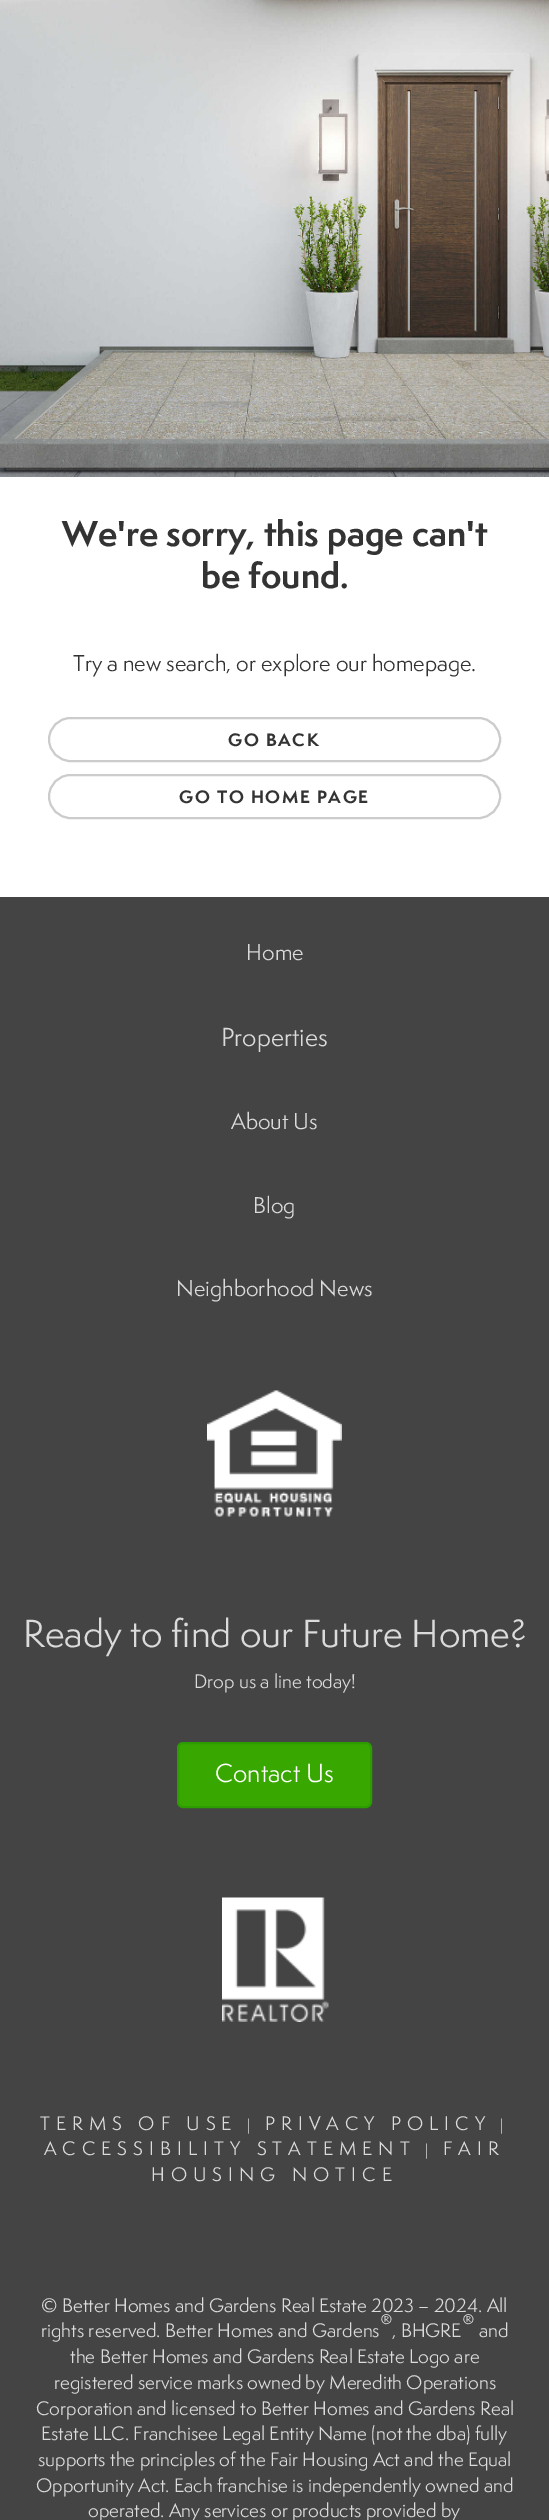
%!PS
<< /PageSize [549 2520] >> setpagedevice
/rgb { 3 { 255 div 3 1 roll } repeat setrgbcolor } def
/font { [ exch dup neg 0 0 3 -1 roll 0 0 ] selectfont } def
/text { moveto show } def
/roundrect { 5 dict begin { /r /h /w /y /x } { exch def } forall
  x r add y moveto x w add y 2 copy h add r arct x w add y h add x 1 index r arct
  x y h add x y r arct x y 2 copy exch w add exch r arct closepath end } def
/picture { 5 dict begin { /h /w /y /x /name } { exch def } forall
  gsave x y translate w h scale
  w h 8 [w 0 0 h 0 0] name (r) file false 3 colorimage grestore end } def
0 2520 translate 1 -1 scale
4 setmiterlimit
255 255 255 rgb
0 0 549 2520 rectfill
(img_01.rgb) 0 0 549 477 picture
204 204 204 rgb
2 setlinewidth
49 718 451 43 21.5 roundrect stroke
49 775 451 43 21.5 roundrect stroke
68 68 68 rgb
0 897 549 1623 rectfill
(img_02.rgb) 207 1390 135 127 picture
56 168 0 rgb
178 1743 193 64 5 roundrect gsave fill grestore
44 156 0 rgb
stroke
(img_03.rgb) 222 1897 107 125 picture
/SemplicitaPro-Bold 33 font
51 51 51 rgb
(We're sorry, this page can't) 62 546 text
(be found.) 201 588 text
/SemplicitaPro-Regular 21 font
(Try a new search, or explore our homepage.) 73 671 text
/SemplicitaPro-Bold 16.5 font
228 746 moveto 1.6 0 (GO BACK) ashow
179 803 moveto 1.6 0 (GO TO HOME PAGE) ashow
/SemplicitaPro-Regular 21 font
219 219 219 rgb
(Home) 246 960 text
/SemplicitaPro-Regular 24 font
(Properties) 221 1046 text
/SemplicitaPro-Regular 21 font
(About Us) 231 1129 text
(Blog) 253 1213 text
(Neighborhood News) 176 1296 text
/SemplicitaPro-Regular 36 font
(Ready to find our Future Home?) 23 1647 text
/SemplicitaPro-Regular 18 font
(Drop us a line today!) 194 1688 text
/SemplicitaPro-Regular 24 font
255 255 255 rgb
(Contact Us) 215 1782 text
/SemplicitaPro-Regular 18 font
219 219 219 rgb
40 2130 moveto 6 0 (TERMS OF USE) ashow
/SemplicitaPro-Regular 14 font
247 2130 moveto 6 0 (|) ashow
/SemplicitaPro-Regular 18 font
265 2130 moveto 6 0 (PRIVACY POLICY) ashow
/SemplicitaPro-Regular 14 font
500 2130 moveto 6 0 (|) ashow
/SemplicitaPro-Regular 18 font
44 2155 moveto 6 0 (ACCESSIBILITY STATEMENT) ashow
/SemplicitaPro-Regular 14 font
425 2155 moveto 6 0 (|) ashow
/SemplicitaPro-Regular 18 font
443 2155 moveto 6 0 (FAIR) ashow
151 2181 moveto 6 0 (HOUSING NOTICE) ashow
(© Better Homes and Gardens Real Estate 2023 – 2024. All) 41 2312 text
(®) 380 2328 text
(®) 462 2328 text
(rights reserved. Better Homes and Gardens) 41 2337 text
(, BHGRE) 392 2337 text
(and) 479 2337 text
(the Better Homes and Gardens Real Estate Logo are) 70 2363 text
(registered service marks owned by Meredith Operations) 54 2389 text
(Corporation and licensed to Better Homes and Gardens Real) 36 2415 text
(Estate LLC. Franchisee Legal Entity Name \(not the dba\) fully) 41 2440 text
(supports the principles of the Fair Housing Act and the Equal) 38 2466 text
(Opportunity Act. Each franchise is independently owned and) 36 2492 text
(operated. Any services or products provided by) 88 2517 text
showpage
